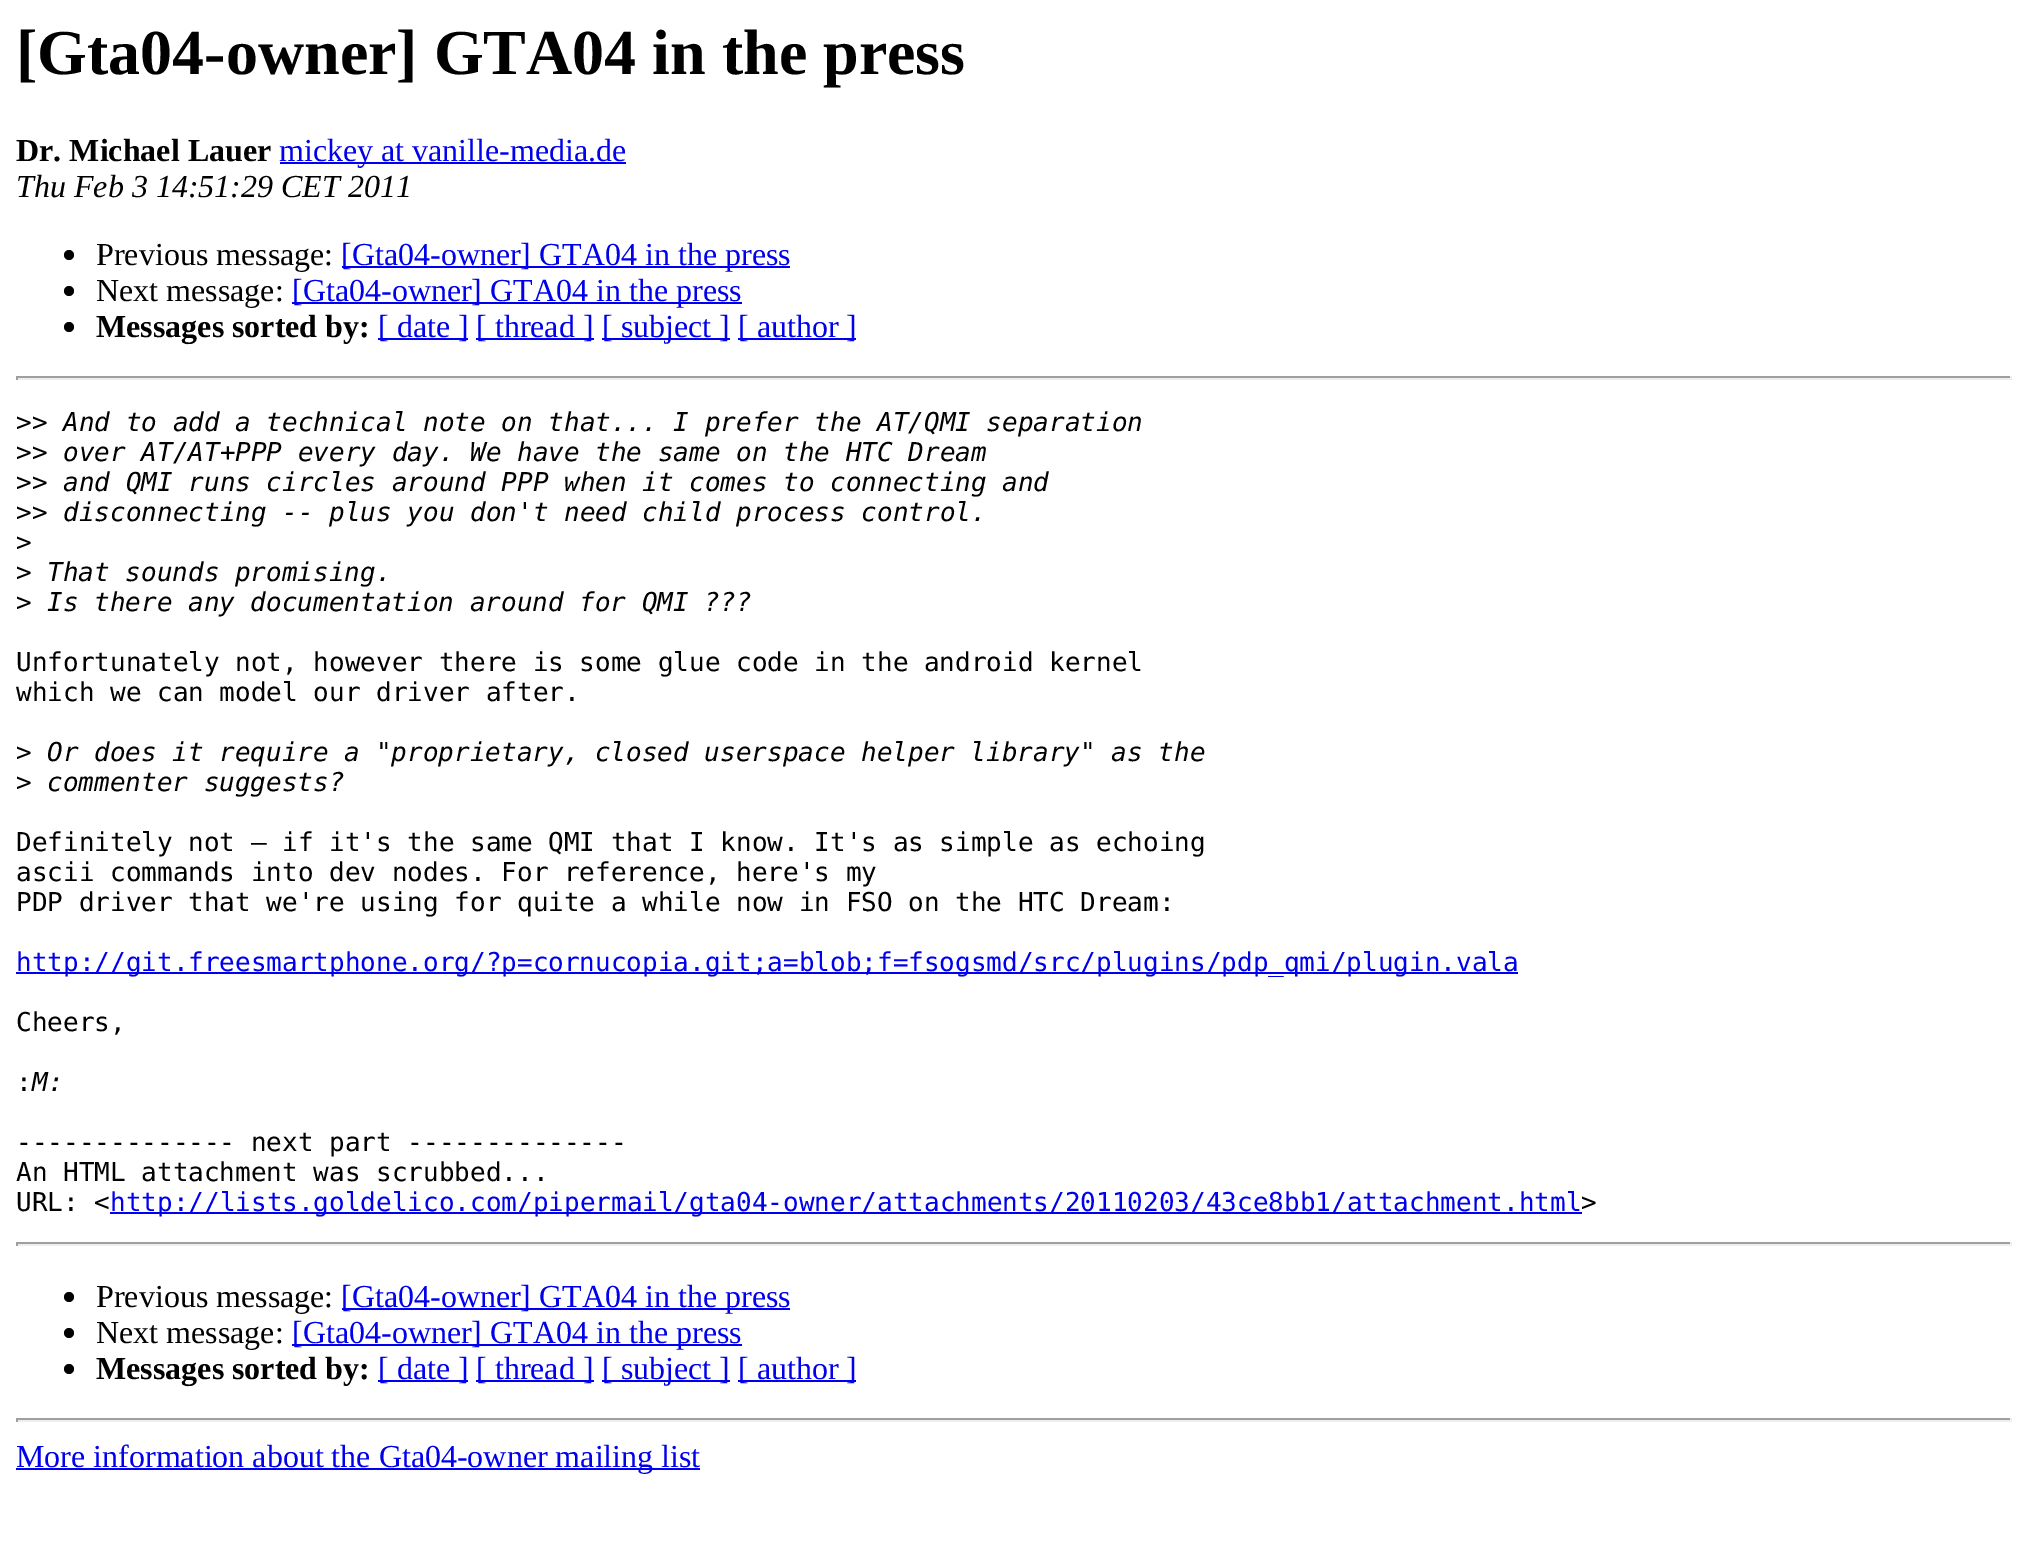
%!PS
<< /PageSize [2028 1567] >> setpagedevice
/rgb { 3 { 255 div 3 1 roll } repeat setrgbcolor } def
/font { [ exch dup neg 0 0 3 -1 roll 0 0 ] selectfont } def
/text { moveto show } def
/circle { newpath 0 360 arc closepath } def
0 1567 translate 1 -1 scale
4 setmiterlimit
255 255 255 rgb
0 0 2028 1567 rectfill
0 0 238 rgb
280 162 346 2 rectfill
0 0 0 rgb
69 255 5 circle fill
0 0 238 rgb
342 266 448 2 rectfill
0 0 0 rgb
69 291 5 circle fill
0 0 238 rgb
292 302 450 2 rectfill
0 0 0 rgb
69 327 5 circle fill
0 0 238 rgb
378 338 90 2 rectfill
476 338 118 2 rectfill
602 338 128 2 rectfill
738 338 118 2 rectfill
159 159 159 rgb
16 376 1996 2 rectfill
238 238 238 rgb
2010 376 2 4 rectfill
16 378 1996 2 rectfill
159 159 159 rgb
16 376 2 4 rectfill
0 0 238 rgb
16 972 1502 2 rectfill
110 1212 1472 2 rectfill
159 159 159 rgb
16 1242 1996 2 rectfill
238 238 238 rgb
2010 1242 2 4 rectfill
16 1244 1996 2 rectfill
159 159 159 rgb
16 1242 2 4 rectfill
0 0 0 rgb
69 1297 5 circle fill
0 0 238 rgb
342 1308 448 2 rectfill
0 0 0 rgb
69 1333 5 circle fill
0 0 238 rgb
292 1344 450 2 rectfill
0 0 0 rgb
69 1369 5 circle fill
0 0 238 rgb
378 1380 90 2 rectfill
476 1380 118 2 rectfill
602 1380 128 2 rectfill
738 1380 118 2 rectfill
159 159 159 rgb
16 1418 1996 2 rectfill
238 238 238 rgb
2010 1418 2 4 rectfill
16 1420 1996 2 rectfill
159 159 159 rgb
16 1418 2 4 rectfill
0 0 238 rgb
16 1468 684 2 rectfill
/LiberationSerif-Bold 64 font
0 0 0 rgb
([Gta04-owner] GTA04 in the press) 16 74 text
/LiberationSerif-Bold 32 font
(Dr. Michael Lauer) 16 161 text
/LiberationSerif-Regular 32 font
0 0 238 rgb
(mickey at vanille-media.de) 279 161 text
/LiberationSerif-Italic 32 font
0 0 0 rgb
(Thu Feb 3 14:51:29 CET 2011) 16 197 text
/LiberationSerif-Regular 32 font
(Previous message:) 96 265 text
0 0 238 rgb
([Gta04-owner] GTA04 in the press) 341 265 text
0 0 0 rgb
(Next message:) 96 301 text
0 0 238 rgb
([Gta04-owner] GTA04 in the press) 292 301 text
/LiberationSerif-Bold 32 font
0 0 0 rgb
(Messages sorted by:) 96 337 text
/LiberationSerif-Regular 32 font
0 0 238 rgb
([ date ]) 378 337 text
([ thread ]) 476 337 text
([ subject ]) 602 337 text
([ author ]) 738 337 text
/DejaVuSansMono-Regular 26 font
0 0 0 rgb
(>>) 16 431 text
/DejaVuSansMono-Italic 26 font
(And to add a technical note on that... I prefer the AT/QMI separation) 63 431 text
/DejaVuSansMono-Regular 26 font
(>>) 16 461 text
/DejaVuSansMono-Italic 26 font
(over AT/AT+PPP every day. We have the same on the HTC Dream) 63 461 text
/DejaVuSansMono-Regular 26 font
(>>) 16 491 text
/DejaVuSansMono-Italic 26 font
(and QMI runs circles around PPP when it comes to connecting and) 63 491 text
/DejaVuSansMono-Regular 26 font
(>>) 16 521 text
/DejaVuSansMono-Italic 26 font
(disconnecting -- plus you don't need child process control.) 63 521 text
/DejaVuSansMono-Regular 26 font
(>) 16 551 text
(>) 16 581 text
/DejaVuSansMono-Italic 26 font
(That sounds promising.) 47 581 text
/DejaVuSansMono-Regular 26 font
(>) 16 611 text
/DejaVuSansMono-Italic 26 font
(Is there any documentation around for QMI ???) 47 611 text
/DejaVuSansMono-Regular 26 font
(Unfortunately not, however there is some glue code in the android kernel) 16 671 text
(which we can model our driver after.) 16 701 text
(>) 16 761 text
/DejaVuSansMono-Italic 26 font
(Or does it require a "proprietary, closed userspace helper library" as the) 47 761 text
/DejaVuSansMono-Regular 26 font
(>) 16 791 text
/DejaVuSansMono-Italic 26 font
(commenter suggests?) 47 791 text
/DejaVuSansMono-Regular 26 font
(Definitely not – if it's the same QMI that I know. It's as simple as echoing) 16 851 text
(ascii commands into dev nodes. For reference, here's my) 16 881 text
(PDP driver that we're using for quite a while now in FSO on the HTC Dream:) 16 911 text
0 0 238 rgb
(http://git.freesmartphone.org/?p=cornucopia.git;a=blob;f=fsogsmd/src/plugins/pdp_qmi/plugin.vala) 16 971 text
0 0 0 rgb
(Cheers,) 16 1031 text
(:) 16 1091 text
/DejaVuSansMono-Italic 26 font
(M:) 32 1091 text
/DejaVuSansMono-Regular 26 font
(-------------- next part --------------) 16 1151 text
(An HTML attachment was scrubbed...) 16 1181 text
(URL: <) 16 1211 text
0 0 238 rgb
(http://lists.goldelico.com/pipermail/gta04-owner/attachments/20110203/43ce8bb1/attachment.html) 110 1211 text
0 0 0 rgb
(>) 1581 1211 text
/LiberationSerif-Regular 32 font
(Previous message:) 96 1307 text
0 0 238 rgb
([Gta04-owner] GTA04 in the press) 341 1307 text
0 0 0 rgb
(Next message:) 96 1343 text
0 0 238 rgb
([Gta04-owner] GTA04 in the press) 292 1343 text
/LiberationSerif-Bold 32 font
0 0 0 rgb
(Messages sorted by:) 96 1379 text
/LiberationSerif-Regular 32 font
0 0 238 rgb
([ date ]) 378 1379 text
([ thread ]) 476 1379 text
([ subject ]) 602 1379 text
([ author ]) 738 1379 text
(More information about the Gta04-owner mailing list) 16 1467 text
showpage
